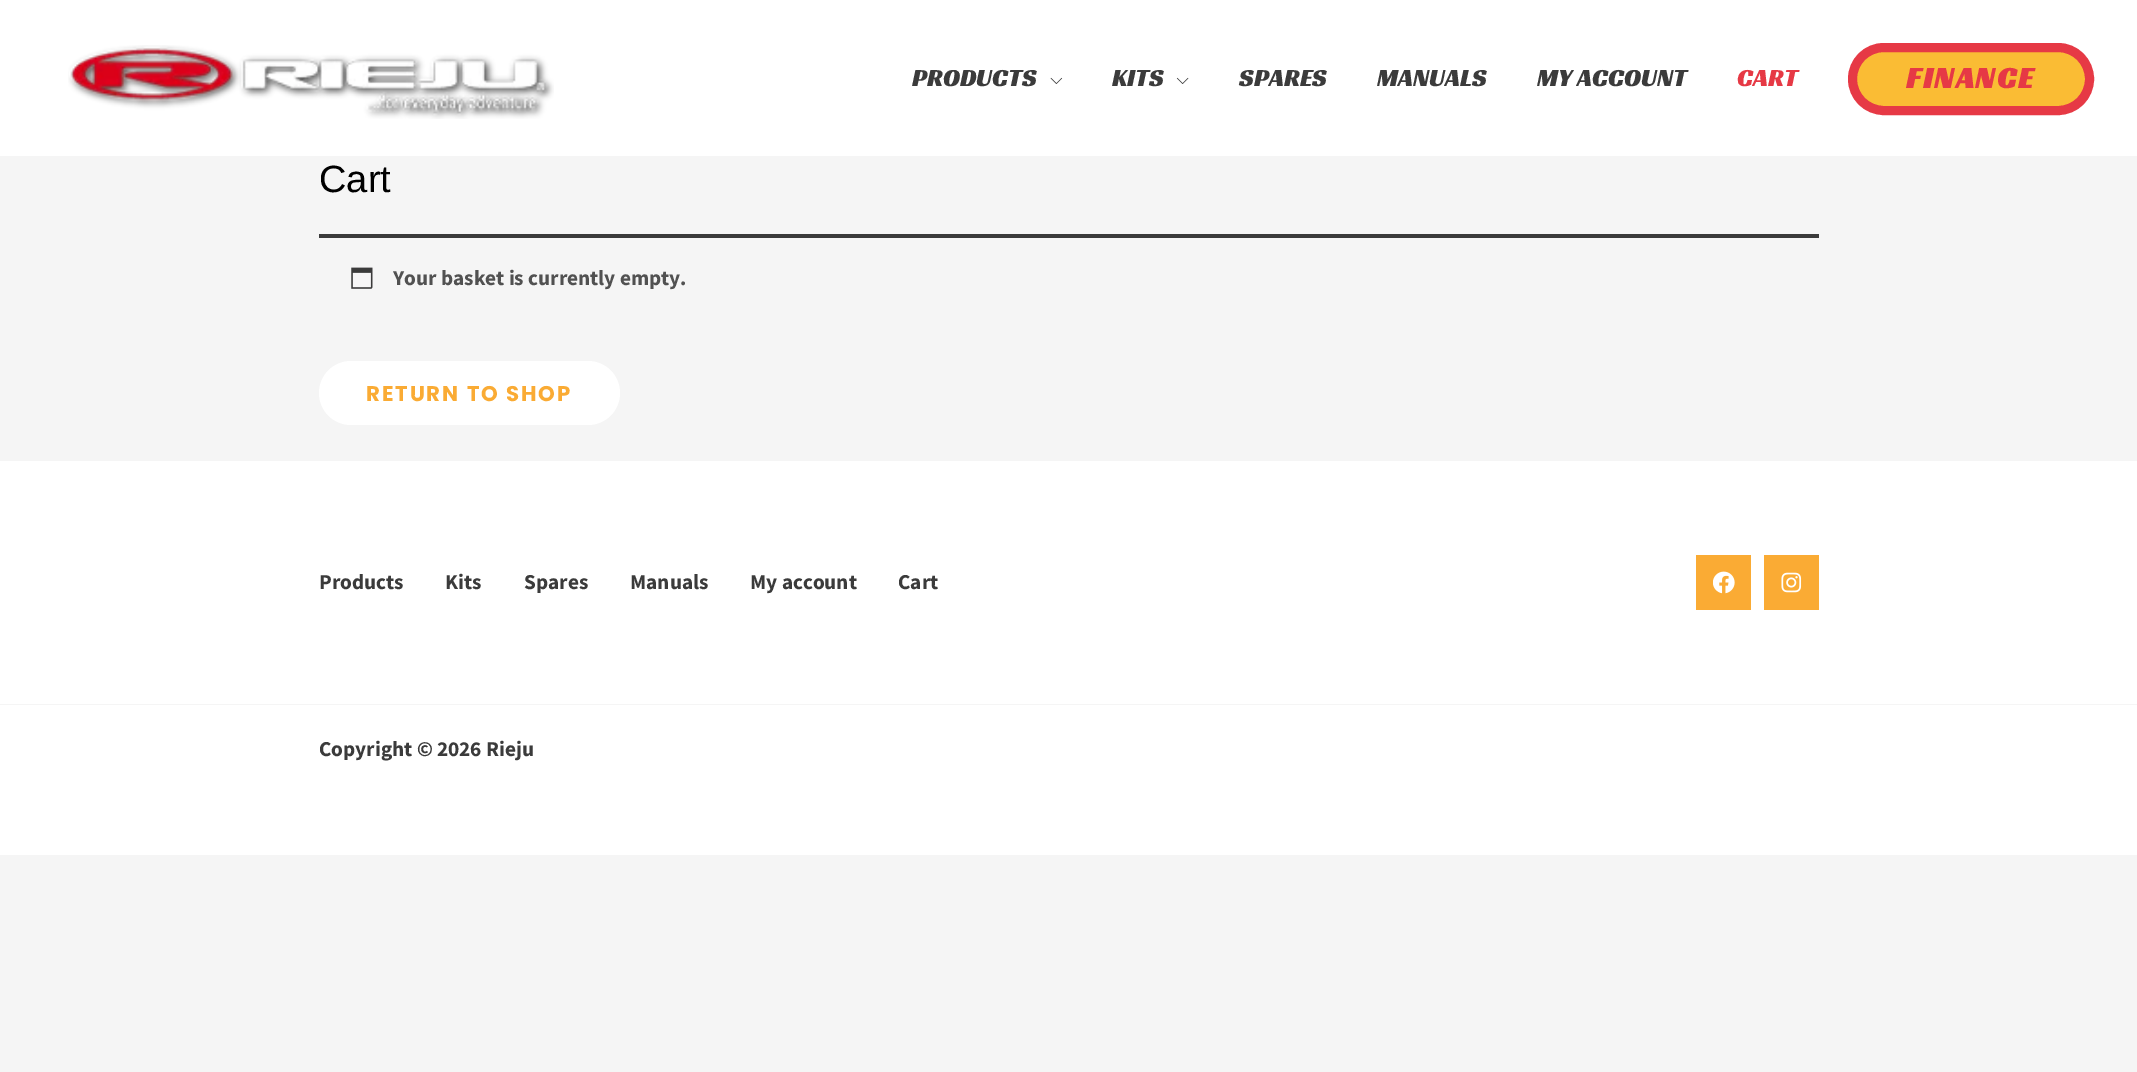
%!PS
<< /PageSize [2137 1072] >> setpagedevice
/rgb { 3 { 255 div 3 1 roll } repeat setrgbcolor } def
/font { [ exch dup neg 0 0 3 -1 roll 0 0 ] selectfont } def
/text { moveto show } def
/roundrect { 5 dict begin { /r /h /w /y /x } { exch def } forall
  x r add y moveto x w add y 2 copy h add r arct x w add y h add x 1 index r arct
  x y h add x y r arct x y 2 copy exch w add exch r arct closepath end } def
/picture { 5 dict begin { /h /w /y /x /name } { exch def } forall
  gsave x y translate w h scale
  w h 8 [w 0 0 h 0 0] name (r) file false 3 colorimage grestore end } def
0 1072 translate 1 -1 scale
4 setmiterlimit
245 245 245 rgb
0 0 2137 1072 rectfill
255 255 255 rgb
0 0 2137 156 rectfill
(img_01.rgb) 68 45 486 74 picture
(img_02.rgb) 1050 77 13 7 picture
(img_03.rgb) 1176 77 13 7 picture
250 188 52 rgb
1852.5 47.5 237 63 31.5 roundrect gsave fill grestore
230 57 69 rgb
9 setlinewidth
stroke
59 59 59 rgb
319 234 1500 4 rectfill
(img_04.rgb) 351 267 22 22 picture
255 255 255 rgb
319 361 301 64 32 roundrect fill
0 461 2137 394 rectfill
250 171 52 rgb
1696 555 55 55 rectfill
(img_05.rgb) 1713 571 22 23 picture
1764 555 55 55 rectfill
(img_06.rgb) 1781 572 21 21 picture
245 245 245 rgb
0 704 2137 1 rectfill
/RacingSansOne-Regular 25 font
59 59 59 rgb
(PRODUCTS) 912 86 text
(KITS) 1112 86 text
(SPARES) 1239 86 text
(MANUALS) 1377 86 text
(MY ACCOUNT) 1537 86 text
230 57 69 rgb
(CART) 1737 86 text
/RacingSansOne-Bold 30 font
1906 88 moveto 1.9 0 (FINANCE) ashow
/LiberationSans-Regular 38 font
0 0 0 rgb
(Cart) 319 192 text
/SourceSansPro-Bold 21.25 font
81 81 81 rgb
(Your basket is currently empty.) 393 285 text
/Poppins-Bold 21.25 font
250 171 52 rgb
366 401 moveto 1.9 0 (RETURN TO SHOP) ashow
/SourceSansPro-Bold 21.25 font
59 59 59 rgb
(Products) 319 589 text
(Kits) 445 589 text
(Spares) 524 589 text
(Manuals) 630 589 text
(My account) 750 589 text
(Cart) 898 589 text
(Copyright © 2026 Rieju) 319 756 text
showpage
